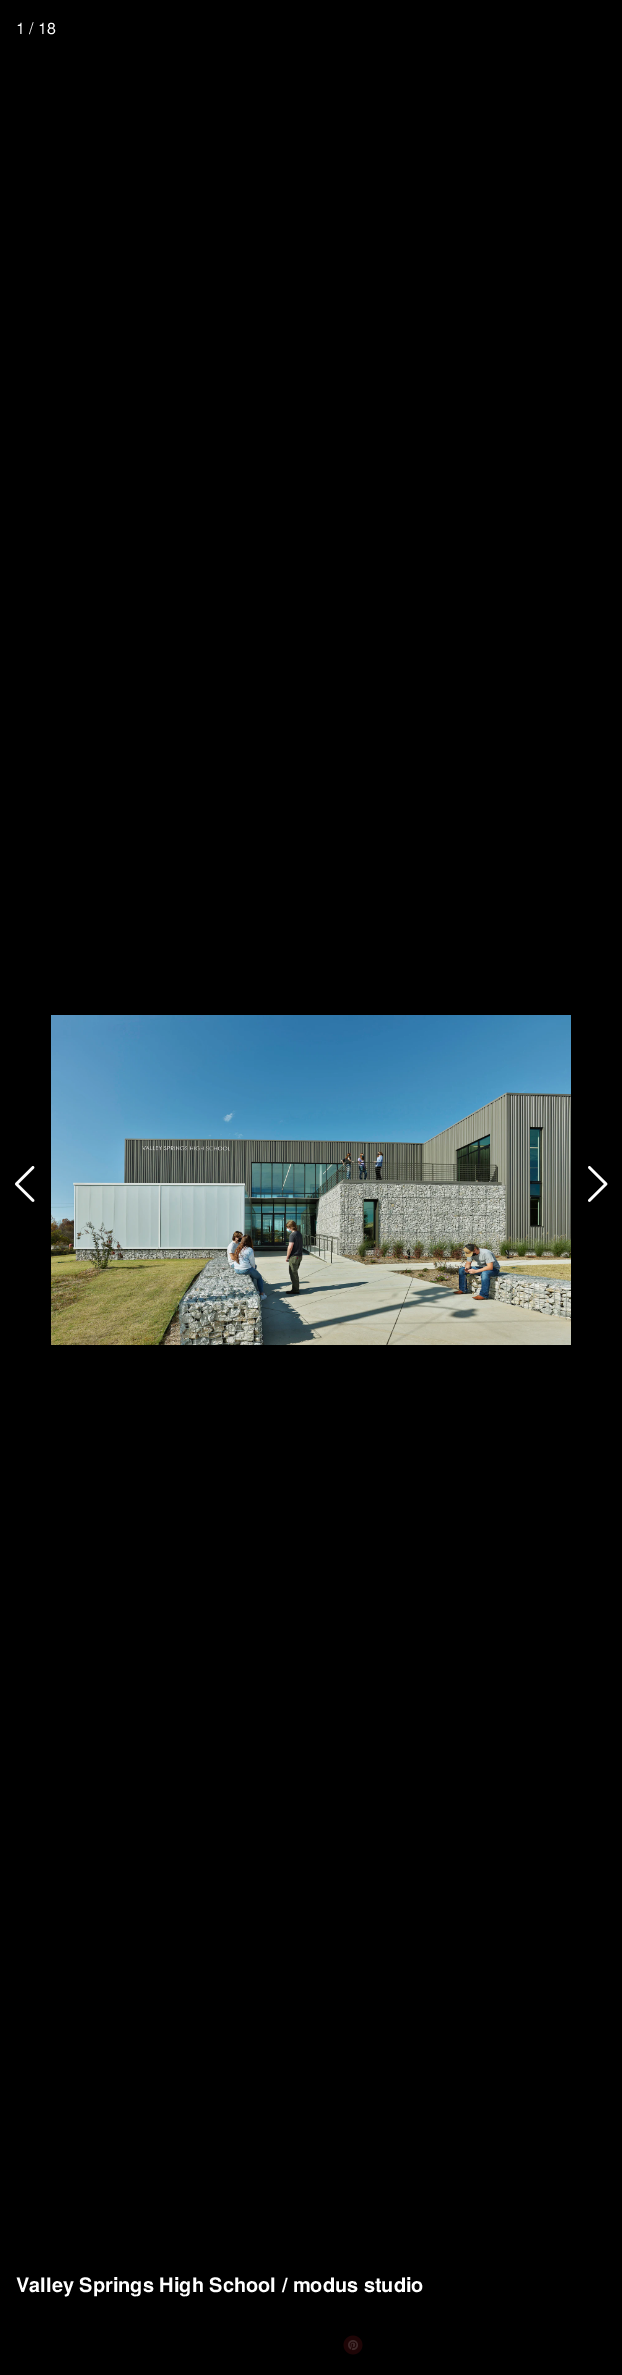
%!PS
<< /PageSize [622 2375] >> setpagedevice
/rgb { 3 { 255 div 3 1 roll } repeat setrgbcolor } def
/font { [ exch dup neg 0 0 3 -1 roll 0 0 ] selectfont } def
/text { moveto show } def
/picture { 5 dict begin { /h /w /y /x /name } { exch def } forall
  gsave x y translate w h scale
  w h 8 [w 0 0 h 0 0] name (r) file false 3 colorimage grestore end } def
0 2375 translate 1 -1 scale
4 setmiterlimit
0 0 0 rgb
0 0 622 2375 rectfill
(img_01.rgb) 51 1015 520 330 picture
(img_02.rgb) 15 1166 20 36 picture
(img_03.rgb) 588 1166 20 36 picture
(img_04.rgb) 343 2335 20 20 picture
/TeXGyreHeros-Regular 16 font
255 255 255 rgb
(1 / 18) 16 34 text
/TeXGyreHeros-Bold 20 font
(Valley Springs High School / modus studio) 16 2292 text
showpage
